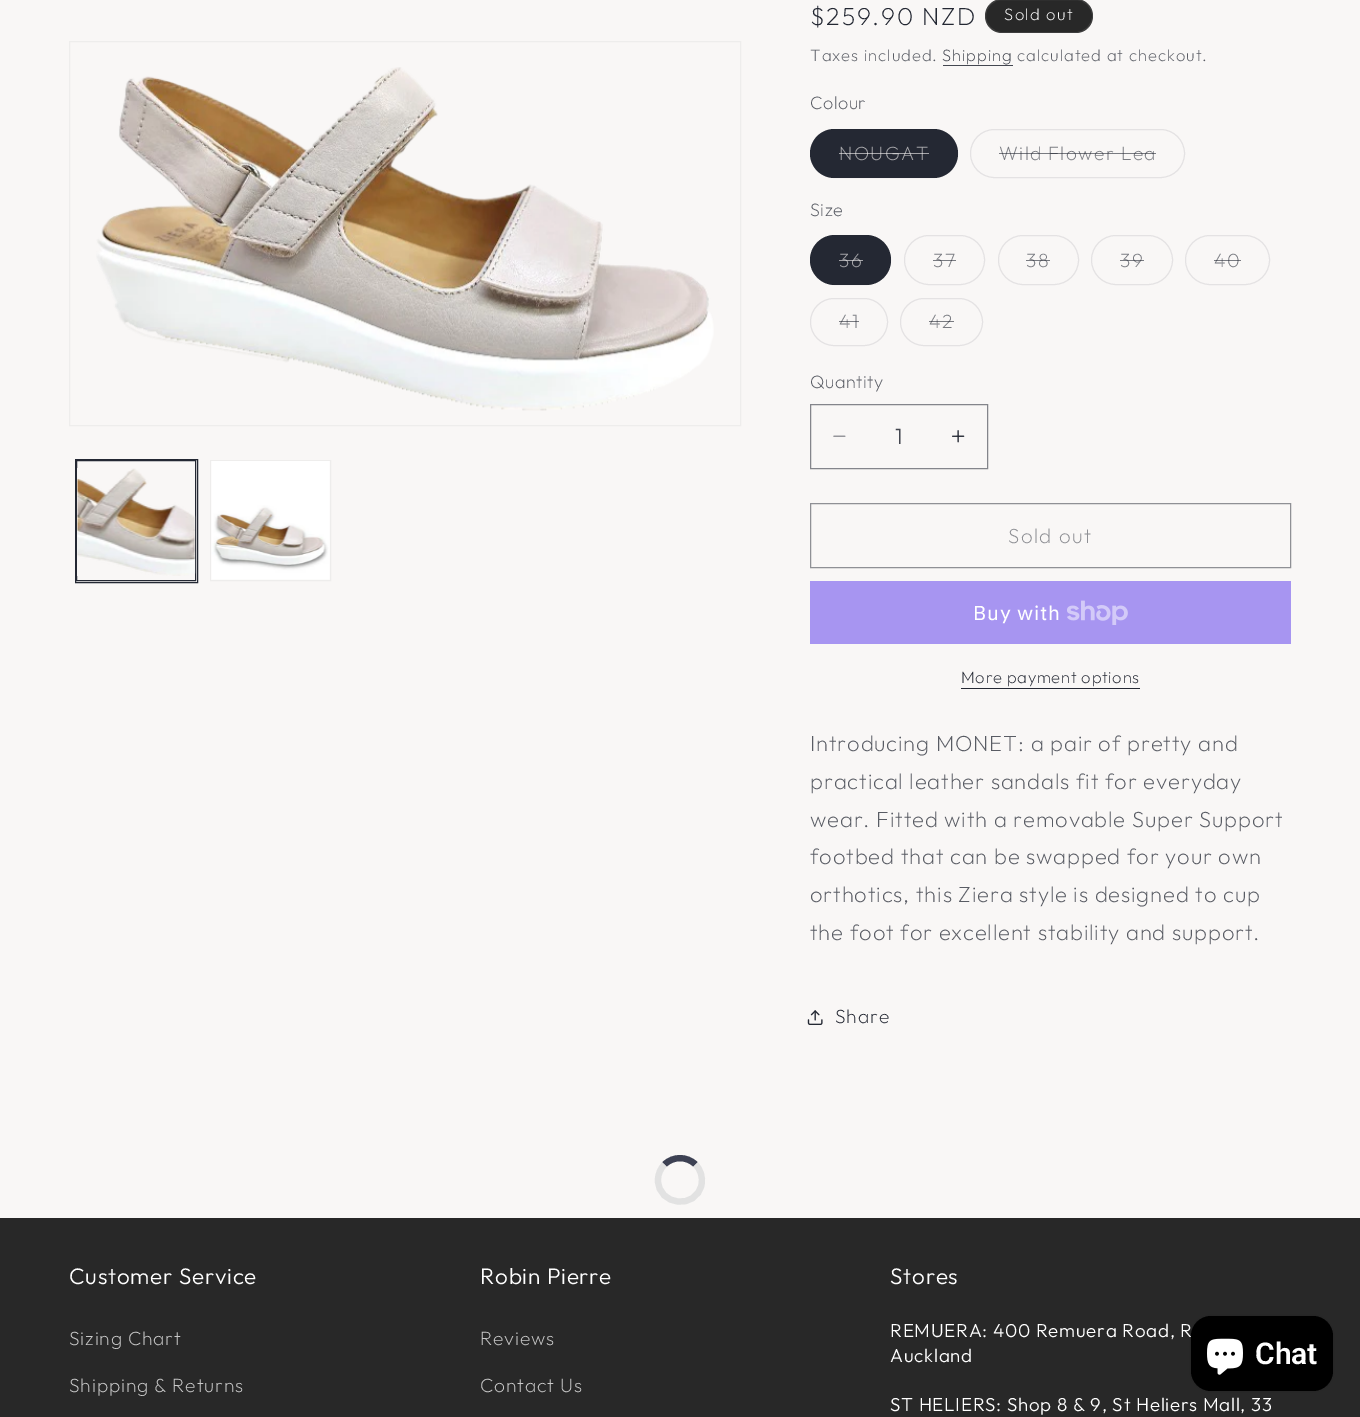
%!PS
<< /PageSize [1360 1417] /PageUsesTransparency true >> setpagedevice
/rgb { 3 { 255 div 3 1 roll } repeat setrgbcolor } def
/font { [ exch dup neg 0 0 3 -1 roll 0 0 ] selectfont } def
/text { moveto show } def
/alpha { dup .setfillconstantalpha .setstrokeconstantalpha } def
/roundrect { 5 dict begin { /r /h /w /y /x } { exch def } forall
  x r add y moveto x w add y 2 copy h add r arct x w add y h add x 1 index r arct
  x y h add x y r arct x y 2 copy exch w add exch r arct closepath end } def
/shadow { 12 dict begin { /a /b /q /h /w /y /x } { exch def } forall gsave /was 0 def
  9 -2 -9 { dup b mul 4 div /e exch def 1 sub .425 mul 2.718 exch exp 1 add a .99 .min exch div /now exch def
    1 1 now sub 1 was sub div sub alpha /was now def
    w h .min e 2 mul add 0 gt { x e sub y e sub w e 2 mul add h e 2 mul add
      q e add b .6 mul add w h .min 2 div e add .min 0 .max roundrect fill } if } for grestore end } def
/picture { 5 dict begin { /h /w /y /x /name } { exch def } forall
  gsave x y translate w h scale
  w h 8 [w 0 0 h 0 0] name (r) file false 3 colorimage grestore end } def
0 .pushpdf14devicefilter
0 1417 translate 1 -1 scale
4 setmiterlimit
249 247 246 rgb
0 0 1360 1417 rectfill
238 237 236 rgb
69.5 41.5 671 384 rectstroke
(img_01.rgb) 96 67 618 344 picture
36 40 51 rgb
75.5 459.5 122 123 rectstroke
76.5 460.5 119 120 rectstroke
(img_02.rgb) 77 468 119 108 picture
238 237 236 rgb
210.5 460.5 120 120 rectstroke
(img_03.rgb) 211 461 119 119 picture
40 40 40 rgb
985 -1 108 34 17 roundrect fill
0.1 alpha
255 255 255 rgb
985.5 -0.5 107 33 16.5 roundrect stroke
1 alpha
68 71 80 rgb
943 65 70 1 rectfill
36 40 51 rgb
810 129 148 49 24.5 roundrect fill
0.1 alpha
810.5 129.5 147 48 24 roundrect stroke
1 alpha
228 226 227 rgb
970.5 129.5 214 48 24 roundrect stroke
36 40 51 rgb
810 235 81 50 25 roundrect fill
0.1 alpha
810.5 235.5 80 49 24.5 roundrect stroke
1 alpha
228 226 227 rgb
904.5 235.5 80 49 24.5 roundrect stroke
998.5 235.5 80 49 24.5 roundrect stroke
1091.5 235.5 81 49 24.5 roundrect stroke
1185.5 235.5 84 49 24.5 roundrect stroke
810.5 298.5 77 47 23.5 roundrect stroke
900.5 298.5 82 47 23.5 roundrect stroke
(img_04.rgb) 833 435 13 2 picture
(img_05.rgb) 952 430 13 13 picture
132 133 139 rgb
810.5 404.5 177 64 rectstroke
143 144 149 rgb
810.5 503.5 480 64 rectstroke
167 149 241 rgb
810 581 481 63 rectfill
(img_06.rgb) 1067 600 61 25 picture
36 40 51 rgb
961 688 179 1 rectfill
(img_07.rgb) 807 1010 16 15 picture
61 65 83 rgb
6.2 setlinewidth
664.5 1164.5 moveto 8.5 -8.5 22.5 -8.5 31 0 rcurveto stroke
226 226 226 rgb
695.5 1164.5 moveto 5 5 7.5 12.5 6 20 rcurveto -5 25.5 -43.5 21.5 -43.5 -4.5 rcurveto 0 -6 2.5 -11.5 6.5 -15.5 rcurveto stroke
40 40 40 rgb
0 1218 1360 199 rectfill
0 0 0 rgb
1191 1316 142 75 20 3 0.15 shadow
/Outfit-ExtraLight 24.75 font
36 40 51 rgb
810 25 moveto 1.75 0 ($259.90 NZD) ashow
/Outfit-ExtraLight 16.5 font
255 255 255 rgb
1004 20 moveto 1.4 0 (Sold out) ashow
89 92 100 rgb
810 61 moveto 1 0 (Taxes included.) ashow
68 71 80 rgb
942 61 moveto 1 0 (Shipping) ashow
89 92 100 rgb
1017 61 moveto 1 0 (calculated at checkout.) ashow
/Outfit-ExtraLight 18 font
810 109 moveto 0.5 0 (Colour) ashow
/Outfit-ExtraLight 19.25 font
164 164 168 rgb
839 160 moveto 1.4 0 (NOUGAT) ashow
0.6 alpha
249 247 246 rgb
839 153 90 1 rectfill
1 alpha
121 123 129 rgb
999 160 moveto 1.4 0 (Wild Flower Lea) ashow
0.6 alpha
36 40 51 rgb
999 153 157 1 rectfill
/Outfit-ExtraLight 18 font
1 alpha
89 92 100 rgb
810 216 moveto 0.5 0 (Size) ashow
/Outfit-ExtraLight 19.25 font
164 164 168 rgb
839 267 moveto 1.4 0 (36) ashow
0.6 alpha
249 247 246 rgb
839 260 24 1 rectfill
1 alpha
121 123 129 rgb
933 267 moveto 1.4 0 (37) ashow
0.6 alpha
36 40 51 rgb
933 260 23 1 rectfill
1 alpha
121 123 129 rgb
1026 267 moveto 1.4 0 (38) ashow
0.6 alpha
36 40 51 rgb
1026 260 24 1 rectfill
1 alpha
121 123 129 rgb
1120 267 moveto 1.4 0 (39) ashow
0.6 alpha
36 40 51 rgb
1120 260 24 1 rectfill
1 alpha
121 123 129 rgb
1214 267 moveto 1.4 0 (40) ashow
0.6 alpha
36 40 51 rgb
1214 260 27 1 rectfill
1 alpha
121 123 129 rgb
839 328 moveto 1.4 0 (41) ashow
0.6 alpha
36 40 51 rgb
839 321 20 1 rectfill
1 alpha
121 123 129 rgb
929 328 moveto 1.4 0 (42) ashow
0.6 alpha
36 40 51 rgb
929 321 25 1 rectfill
/Outfit-ExtraLight 18 font
1 alpha
89 92 100 rgb
810 388 moveto 0.5 0 (Quantity) ashow
/Outfit-Light 22 font
68 71 80 rgb
(1) 895 444 text
/Outfit-ExtraLight 20.5 font
143 144 149 rgb
1008 543 moveto 1.4 0 (Sold out) ashow
/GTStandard-Regular 20 font
255 255 255 rgb
973 620 moveto 0.85 0 (Buy with) ashow
/Outfit-ExtraLight 16.5 font
36 40 51 rgb
961 683 moveto 0.7 0 (More payment options) ashow
/Outfit-ExtraLight 22 font
89 92 100 rgb
810 751 moveto 0.85 0 (Introducing MONET: a pair of pretty and) ashow
810 789 moveto 0.85 0 (practical leather sandals fit for everyday) ashow
810 827 moveto 0.85 0 (wear. Fitted with a removable Super Support) ashow
810 864 moveto 0.85 0 (footbed that can be swapped for your own) ashow
810 902 moveto 0.85 0 (orthotics, this Ziera style is designed to cup) ashow
810 940 moveto 0.85 0 (the foot for excellent stability and support.) ashow
/Outfit-ExtraLight 19.25 font
36 40 51 rgb
835 1023 moveto 0.85 0 (Share) ashow
/Outfit-Light 22.5 font
255 255 255 rgb
69 1284 moveto 0.75 0 (Customer Service) ashow
/Outfit-ExtraLight 19.25 font
201 201 201 rgb
69 1345 moveto 0.85 0 (Sizing Chart) ashow
69 1392 moveto 0.85 0 (Shipping & Returns) ashow
/Outfit-Light 22.5 font
255 255 255 rgb
480 1284 moveto 0.75 0 (Robin Pierre) ashow
/Outfit-ExtraLight 19.25 font
201 201 201 rgb
480 1345 moveto 0.85 0 (Reviews) ashow
480 1392 moveto 0.85 0 (Contact Us) ashow
/Outfit-Light 22.5 font
255 255 255 rgb
890 1284 moveto 0.75 0 (Stores) ashow
/Outfit-Light 18.75 font
890 1337 moveto 0.75 0 (REMUERA: 400 Remuera Road, R) ashow
890 1362 moveto 0.75 0 (Auckland) ashow
890 1411 moveto 0.75 0 (ST HELIERS: Shop 8 & 9, St Heliers Mall, 33) ashow
0 0 0 rgb
1191 1316 142 75 20 roundrect fill
(img_08.rgb) 1207 1338 36 37 picture
/Roboto-SemiBold 30 font
255 255 255 rgb
(Chat) 1255 1364 text
.poppdf14devicefilter showpage
